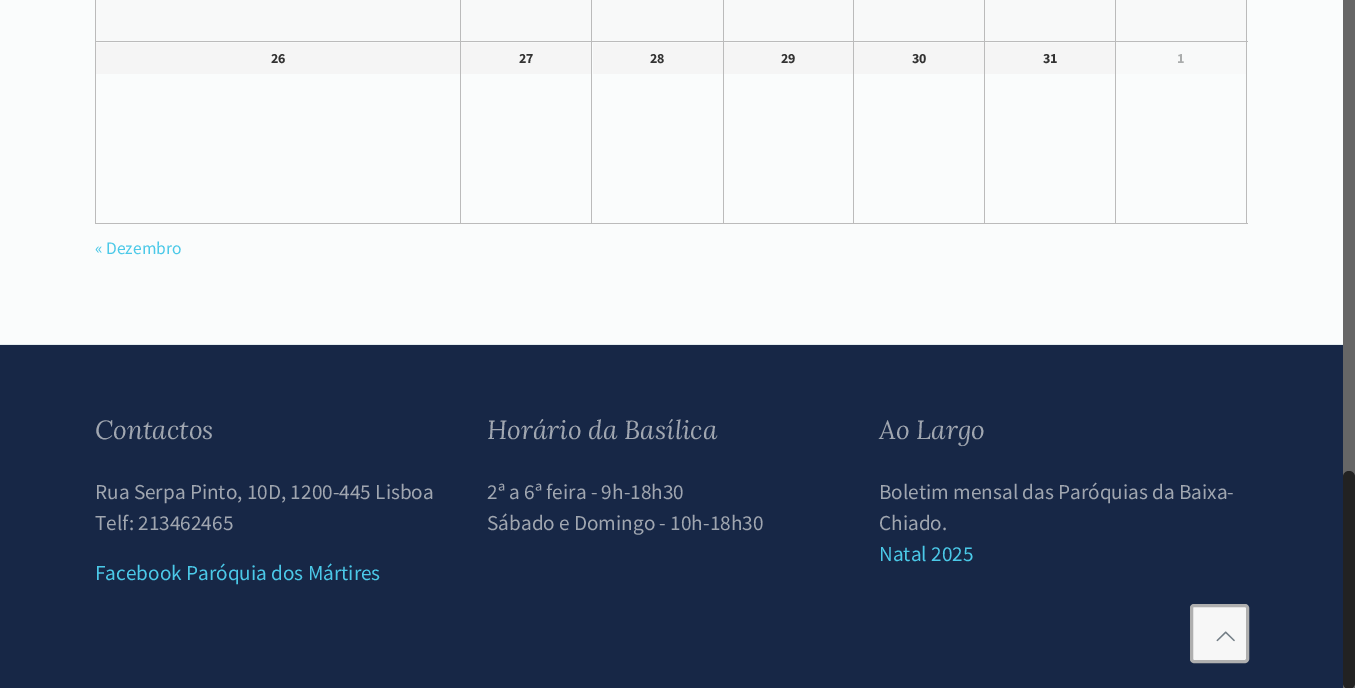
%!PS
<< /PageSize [1355 688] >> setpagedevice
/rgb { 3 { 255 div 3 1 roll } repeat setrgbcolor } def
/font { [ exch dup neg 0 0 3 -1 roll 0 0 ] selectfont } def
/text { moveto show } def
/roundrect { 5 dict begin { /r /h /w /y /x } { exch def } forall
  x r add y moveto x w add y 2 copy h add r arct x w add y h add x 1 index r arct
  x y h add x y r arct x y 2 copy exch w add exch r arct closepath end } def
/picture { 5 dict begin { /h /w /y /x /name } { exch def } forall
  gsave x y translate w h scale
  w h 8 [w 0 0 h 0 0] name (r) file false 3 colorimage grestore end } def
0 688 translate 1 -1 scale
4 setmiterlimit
250 252 252 rgb
0 0 1355 688 rectfill
187 187 187 rgb
1246 0 1 224 rectfill
95 223 1153 1 rectfill
95 0 1 224 rectfill
248 249 249 rgb
96 0 364 43 rectfill
461 0 130 43 rectfill
592 0 131 43 rectfill
724 0 129 43 rectfill
854 0 130 43 rectfill
985 0 130 43 rectfill
1116 0 130 74 rectfill
187 187 187 rgb
1115 41 133 1 rectfill
1115 41 1 183 rectfill
984 41 132 1 rectfill
984 41 1 183 rectfill
853 41 132 1 rectfill
853 41 1 183 rectfill
723 41 131 1 rectfill
723 41 1 183 rectfill
591 41 133 1 rectfill
591 41 1 183 rectfill
460 41 133 1 rectfill
460 41 1 183 rectfill
95 41 366 1 rectfill
460 0 1 43 rectfill
591 0 1 43 rectfill
723 0 1 43 rectfill
853 0 1 43 rectfill
984 0 1 43 rectfill
1115 0 1 43 rectfill
245 245 245 rgb
96 43 364 31 rectfill
461 43 130 31 rectfill
593 43 130 31 rectfill
724 43 129 31 rectfill
854 43 130 31 rectfill
985 43 130 31 rectfill
23 39 70 rgb
0 345 1343 343 rectfill
228 236 238 rgb
0 344 1343 1 rectfill
102 102 102 rgb
1343 0 12 688 rectfill
34 34 34 rgb
1343 471 12 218 6 roundrect fill
247 247 247 rgb
1191.5 605.5 56 56 2.5 roundrect gsave fill grestore
175 175 175 rgb
3 setlinewidth
stroke
(img_01.rgb) 1216 631 19 11 picture
/SourceSansPro-Bold 14 font
51 51 51 rgb
(26) 271 63 text
(27) 519 63 text
(28) 650 63 text
(29) 781 63 text
(30) 912 63 text
(31) 1043 63 text
170 172 172 rgb
(1) 1177 63 text
/SourceSansPro-Regular 17.5 font
75 201 232 rgb
(« Dezembro) 95 254 text
/Lora-Italic 26.25 font
160 166 176 rgb
(Contactos) 95 439 text
/SourceSansPro-Regular 21.25 font
(Rua Serpa Pinto, 10D, 1200-445 Lisboa) 95 499 text
(Telf: 213462465) 95 530 text
75 201 232 rgb
(Facebook Paróquia dos Mártires) 95 580 text
/Lora-Italic 26.25 font
160 166 176 rgb
(Horário da Basílica) 487 439 text
/SourceSansPro-Regular 21.25 font
(2ª a 6ª feira - 9h-18h30) 487 499 text
(Sábado e Domingo - 10h-18h30) 487 530 text
/Lora-Italic 26.25 font
(Ao Largo) 879 439 text
/SourceSansPro-Regular 21.25 font
(Boletim mensal das Paróquias da Baixa-) 879 499 text
(Chiado.) 879 530 text
75 201 232 rgb
(Natal 2025) 879 561 text
showpage
